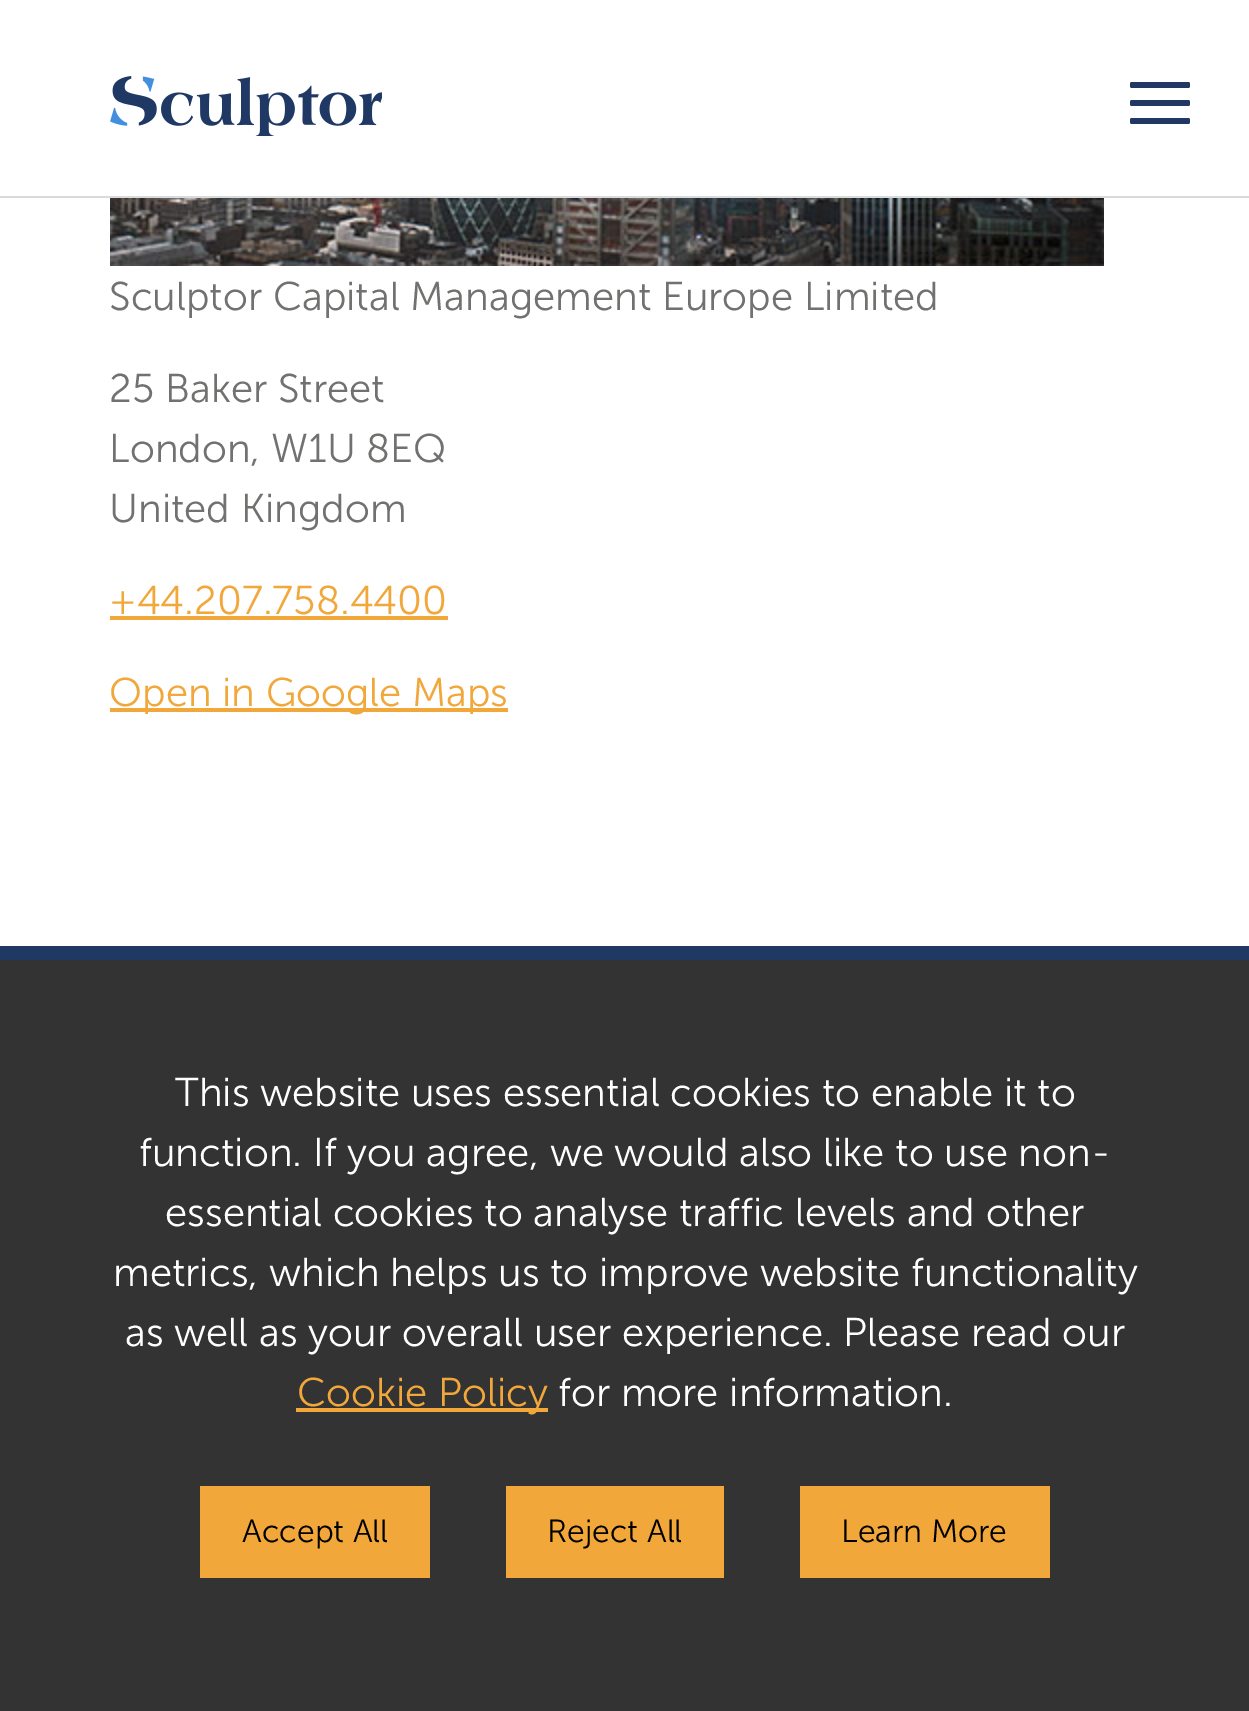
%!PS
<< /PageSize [1249 1711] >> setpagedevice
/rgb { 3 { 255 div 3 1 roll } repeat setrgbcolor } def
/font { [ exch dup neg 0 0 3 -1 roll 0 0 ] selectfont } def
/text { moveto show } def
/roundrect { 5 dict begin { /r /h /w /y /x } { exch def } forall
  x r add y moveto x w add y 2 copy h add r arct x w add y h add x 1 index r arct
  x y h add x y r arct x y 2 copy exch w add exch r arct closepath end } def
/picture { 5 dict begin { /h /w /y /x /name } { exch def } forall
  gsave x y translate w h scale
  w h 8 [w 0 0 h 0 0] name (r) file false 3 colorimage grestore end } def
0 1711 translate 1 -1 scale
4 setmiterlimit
255 255 255 rgb
0 0 1249 1711 rectfill
216 219 220 rgb
0 196 1249 2 rectfill
(img_01.rgb) 110 76 272 60 picture
31 56 100 rgb
1130 82 60 6 2 roundrect fill
1130 100 60 6 2 roundrect fill
1130 118 60 6 2 roundrect fill
(img_02.rgb) 110 198 994 68 picture
242 167 59 rgb
110 616 338 4 rectfill
110 708 398 4 rectfill
31 56 100 rgb
0 946 1249 14 rectfill
51 51 51 rgb
0 960 1249 751 rectfill
242 167 59 rgb
296 1408 252 4 rectfill
200 1486 230 92 rectfill
506 1486 218 92 rectfill
800 1486 250 92 rectfill
/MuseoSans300-Light 40 font
113 113 112 rgb
(Sculptor Capital Management Europe Limited) 109 310 text
(25 Baker Street) 109 402 text
(London, W1U 8EQ) 109 462 text
(United Kingdom) 109 522 text
242 167 59 rgb
(+44.207.758.4400) 109 614 text
(Open in Google Maps) 109 706 text
255 255 255 rgb
(This website uses essential cookies to enable it to) 175 1106 text
(function. If you agree, we would also like to use non-) 139 1166 text
(essential cookies to analyse traffic levels and other) 165 1226 text
(metrics, which helps us to improve website functionality) 113 1286 text
(as well as your overall user experience. Please read our) 125 1346 text
242 167 59 rgb
(Cookie Policy) 297 1406 text
255 255 255 rgb
(for more information.) 558 1406 text
/MuseoSans300-Light 32 font
0 0 0 rgb
(Accept All) 242 1542 text
(Reject All) 547 1542 text
(Learn More) 841 1542 text
showpage
